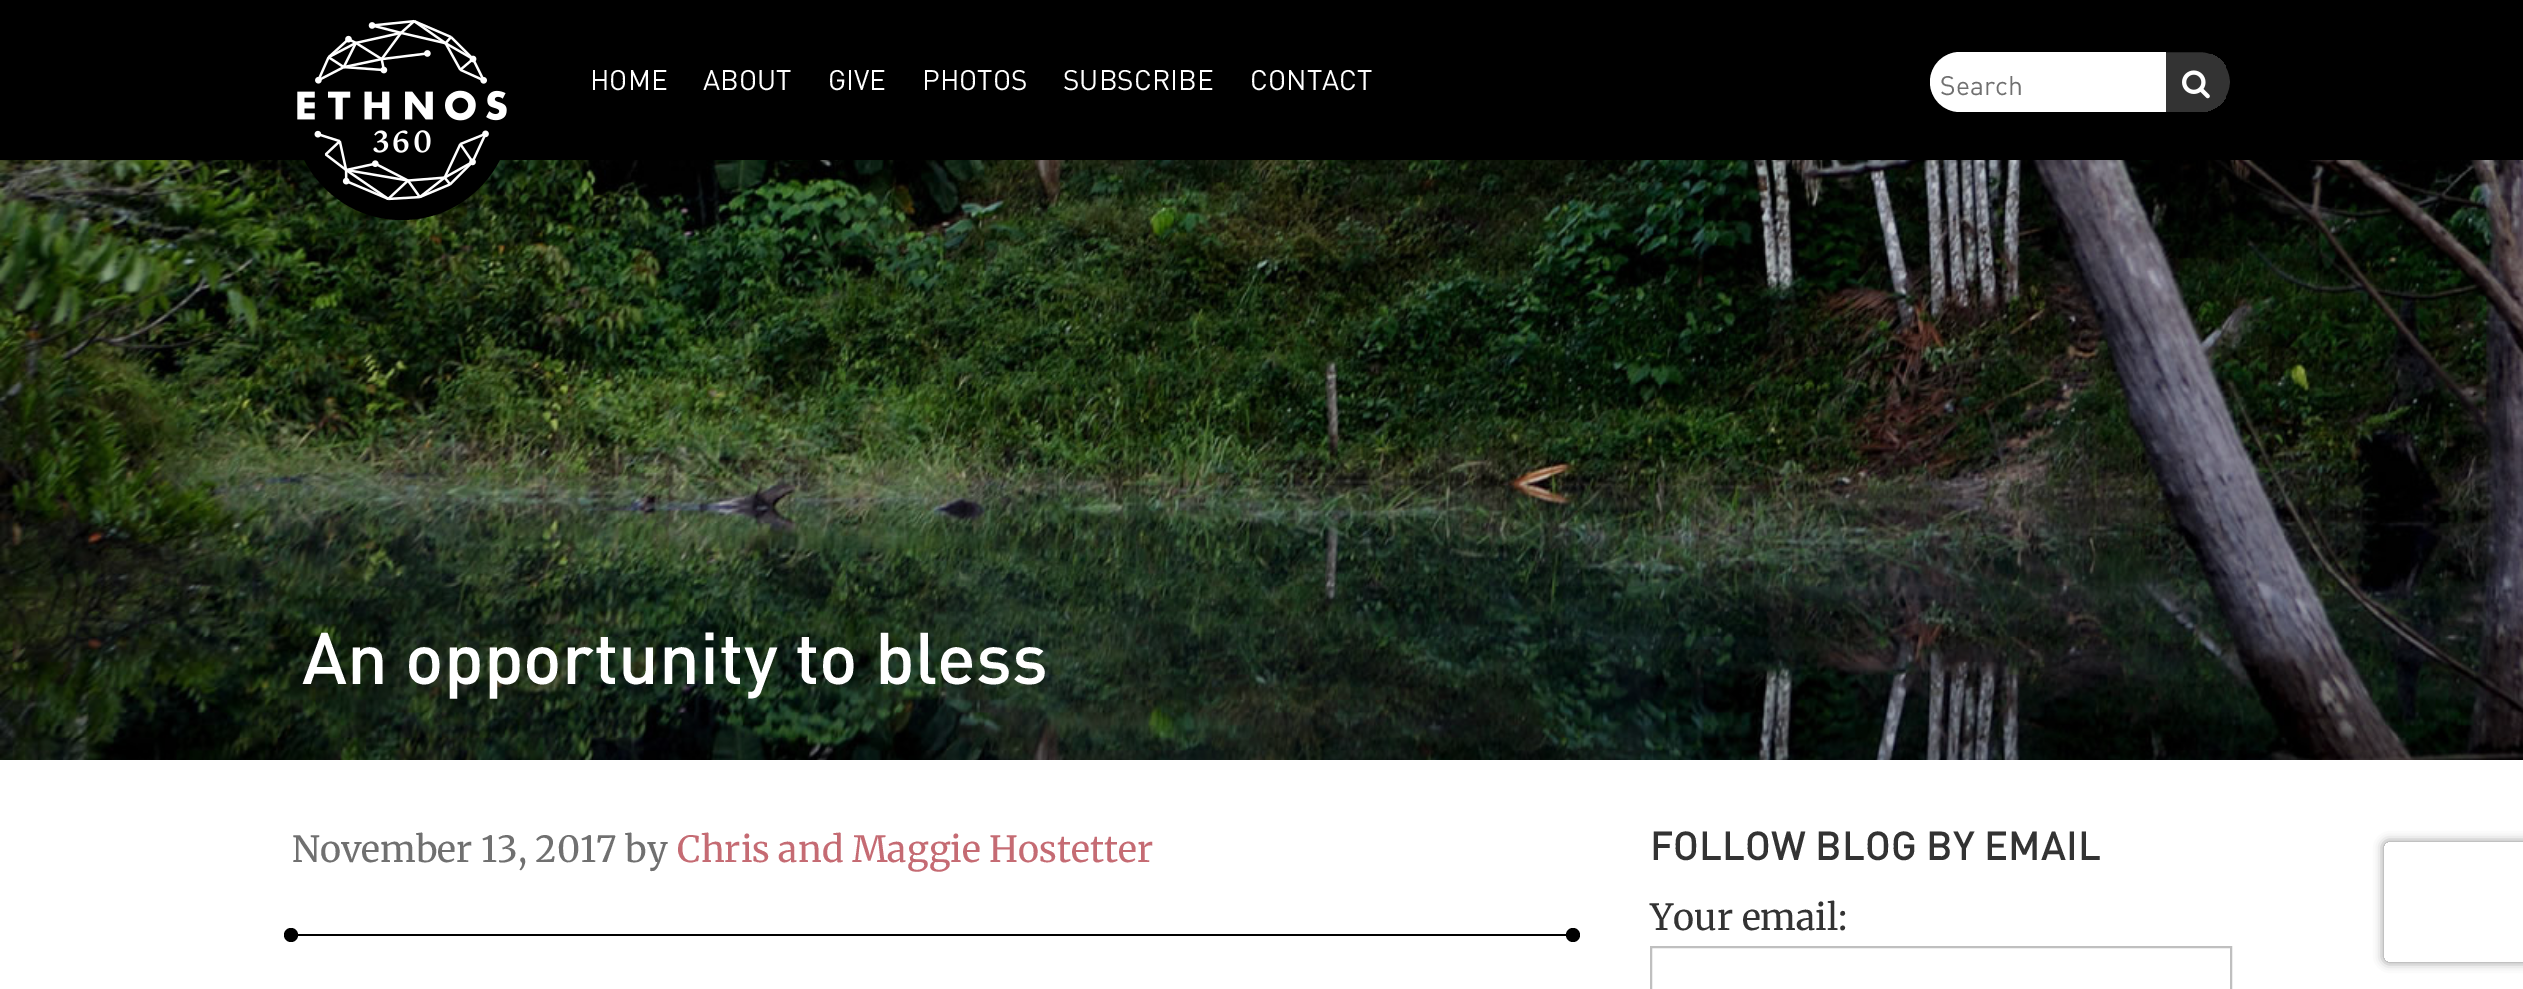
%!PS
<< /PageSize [2523 989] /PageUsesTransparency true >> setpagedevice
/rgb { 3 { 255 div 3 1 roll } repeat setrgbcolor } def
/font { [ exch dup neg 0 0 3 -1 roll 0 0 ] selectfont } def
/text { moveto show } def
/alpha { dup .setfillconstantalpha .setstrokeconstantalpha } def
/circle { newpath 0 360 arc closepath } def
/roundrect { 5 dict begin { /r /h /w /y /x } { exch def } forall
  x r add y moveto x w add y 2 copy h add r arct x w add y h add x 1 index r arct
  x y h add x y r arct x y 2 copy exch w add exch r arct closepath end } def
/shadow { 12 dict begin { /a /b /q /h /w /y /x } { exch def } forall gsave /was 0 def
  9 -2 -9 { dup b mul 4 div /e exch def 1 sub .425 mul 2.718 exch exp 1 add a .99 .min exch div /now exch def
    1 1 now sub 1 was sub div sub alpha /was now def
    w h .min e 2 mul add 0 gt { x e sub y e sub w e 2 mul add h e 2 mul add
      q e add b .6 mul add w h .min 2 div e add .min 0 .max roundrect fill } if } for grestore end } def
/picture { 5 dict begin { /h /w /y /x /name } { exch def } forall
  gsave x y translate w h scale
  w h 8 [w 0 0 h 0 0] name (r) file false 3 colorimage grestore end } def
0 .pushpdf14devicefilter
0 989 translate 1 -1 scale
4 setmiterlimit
255 255 255 rgb
0 0 2523 989 rectfill
0 0 0 rgb
0 0 2523 160 rectfill
(img_03.rgb) 0 160 2523 600 picture
402 110 110 circle fill
(img_01.rgb) 297 19 210 182 picture
51 51 51 rgb
1929 51 302 62 31 roundrect gsave fill grestore
0 0 0 rgb
2 setlinewidth
stroke
gsave
1930 52 300 60 30 roundrect clip newpath
51 51 51 rgb
2166 54 60 60 10 roundrect fill
grestore
255 255 255 rgb
1960 52 moveto 206 0 rlineto 0 60 rlineto -206 0 rlineto -16.5 0 -30 -13.5 -30 -30 rcurveto 0 -16.5 13.5 -30 30 -30 rcurveto closepath fill
(img_02.rgb) 2182 70 28 29 picture
0 0 0 rgb
292 934 1280 2 rectfill
291 935 7 circle fill
1573 935 7 circle fill
191 191 191 rgb
1651 947 580 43 rectstroke
gsave
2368 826 moveto 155 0 rlineto 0 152 rlineto -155 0 rlineto closepath 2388 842 moveto 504 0 rlineto 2 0 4 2 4 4 rcurveto 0 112 rlineto 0 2 -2 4 -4 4 rcurveto -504 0 rlineto -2 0 -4 -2 -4 -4 rcurveto 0 -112 rlineto 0 -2 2 -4 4 -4 rcurveto closepath eoclip newpath
128 128 128 rgb
2384 842 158 120 4 5 1 shadow
grestore
/DIN-Regular 28 font
255 255 255 rgb
(HOME) 590 90 text
(ABOUT) 703 90 text
(GIVE) 828 90 text
(PHOTOS) 922 90 text
(SUBSCRIBE) 1063 90 text
(CONTACT) 1250 90 text
/DIN-Regular 26.5 font
112 112 112 rgb
(Search) 1940 95 text
/DIN-Medium 72 font
255 255 255 rgb
(An opportunity to bless) 302 684 text
/Merriweather-Regular 36 font
112 112 112 rgb
(November 13, 2017 by) 292 862 text
197 107 115 rgb
(Chris and Maggie Hostetter) 677 862 text
/DIN-Medium 40 font
51 51 51 rgb
(FOLLOW BLOG BY EMAIL) 1650 860 text
/Merriweather-Regular 36 font
(Your email:) 1650 930 text
.poppdf14devicefilter showpage
